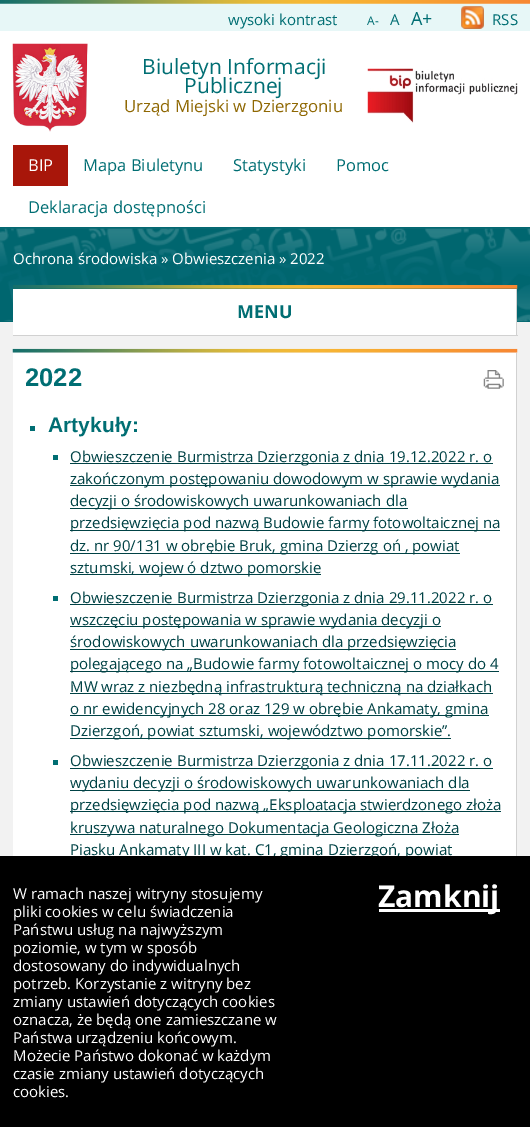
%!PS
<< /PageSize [530 1127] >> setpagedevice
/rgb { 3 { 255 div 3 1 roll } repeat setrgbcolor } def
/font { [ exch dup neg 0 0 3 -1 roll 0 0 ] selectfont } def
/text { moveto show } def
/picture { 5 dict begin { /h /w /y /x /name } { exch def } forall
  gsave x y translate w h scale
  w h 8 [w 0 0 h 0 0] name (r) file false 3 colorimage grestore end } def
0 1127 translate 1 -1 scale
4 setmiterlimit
242 242 242 rgb
0 0 530 1127 rectfill
255 255 255 rgb
0 31 530 196 rectfill
231 247 247 rgb
0 3 530 28 rectfill
(img_01.rgb) 0 0 530 4 picture
(img_02.rgb) 461 6 23 23 picture
(img_03.rgb) 12 43 76 89 picture
(img_04.rgb) 367 68 151 55 picture
168 22 10 rgb
13 145 55 41 rectfill
0 102 111 rgb
0 227 530 95 rectfill
(img_05.rgb) 0 227 530 95 picture
(img_06.rgb) 13 285 505 4 picture
255 255 255 rgb
13 289 503 46 rectfill
209 209 209 rgb
516 289 1 47 rectfill
13 335 505 1 rectfill
(img_07.rgb) 12 348 506 5 picture
255 255 255 rgb
13 353 503 503 rectfill
209 209 209 rgb
516 353 1 503 rectfill
(img_08.rgb) 483 370 21 19 picture
0 110 115 rgb
30 426 5 5 rectfill
53 455 5 5 rectfill
0 66 69 rgb
70 463 423 1 rectfill
70 485 430 1 rectfill
70 508 338 1 rectfill
70 530 430 1 rectfill
70 553 390 1 rectfill
70 574 251 1 rectfill
0 110 115 rgb
53 596 5 5 rectfill
0 66 69 rgb
70 604 423 1 rectfill
70 626 371 1 rectfill
70 649 386 1 rectfill
70 671 429 1 rectfill
70 693 423 1 rectfill
70 715 419 1 rectfill
70 738 381 1 rectfill
0 110 115 rgb
53 760 5 5 rectfill
0 66 69 rgb
70 768 423 1 rectfill
70 790 400 1 rectfill
70 811 431 1 rectfill
70 834 389 1 rectfill
/OpenSans-Regular 15 font
0 110 115 rgb
(wysoki kontrast) 228 25 text
/OpenSans-Regular 12 font
(A-) 367 25 text
/OpenSans-Regular 15 font
(A) 390 25 text
/OpenSans-Regular 18 font
(A+) 411 25 text
/OpenSans-Regular 15 font
(RSS) 492 25 text
/OpenSans-Regular 21 font
(Biuletyn Informacji) 142 74 text
(Publicznej) 184 93 text
/OpenSans-Regular 16.75 font
143 104 3 rgb
(Urząd Miejski w Dzierzgoniu) 124 112 text
/OpenSans-Regular 16.5 font
255 255 255 rgb
(BIP) 28 171 text
0 110 115 rgb
(Mapa Biuletynu) 83 171 text
(Statystyki) 233 171 text
(Pomoc) 336 171 text
(Deklaracja dostępności) 28 213 text
/OpenSans-Regular 15 font
255 255 255 rgb
(Ochrona środowiska » Obwieszczenia » 2022) 13 264 text
/OpenSans-Bold 18 font
0 110 115 rgb
(MENU) 237 318 text
/LiberationSans-Bold 25.5 font
(2022) 25 386 text
/LiberationSans-Bold 21 font
(Artykuły:) 48 432 text
/OpenSans-Regular 15 font
0 66 69 rgb
(Obwieszczenie Burmistrza Dzierzgonia z dnia 19.12.2022 r. o) 70 462 text
(zakończonym postępowaniu dowodowym w sprawie wydania) 70 484 text
(decyzji o środowiskowych uwarunkowaniach dla) 70 506 text
(przedsięwzięcia pod nazwą Budowie farmy fotowoltaicznej na) 70 528 text
(dz. nr 90/131 w obrębie Bruk, gmina Dzierzg oń , powiat) 70 551 text
(sztumski, wojew ó dztwo pomorskie) 70 573 text
(Obwieszczenie Burmistrza Dzierzgonia z dnia 29.11.2022 r. o) 70 603 text
(wszczęciu postępowania w sprawie wydania decyzji o) 70 625 text
(środowiskowych uwarunkowaniach dla przedsięwzięcia) 70 647 text
(polegającego na „Budowie farmy fotowoltaicznej o mocy do 4) 70 669 text
(MW wraz z niezbędną infrastrukturą techniczną na działkach) 70 692 text
(o nr ewidencyjnych 28 oraz 129 w obrębie Ankamaty, gmina) 70 714 text
(Dzierzgoń, powiat sztumski, województwo pomorskie”.) 70 736 text
(Obwieszczenie Burmistrza Dzierzgonia z dnia 17.11.2022 r. o) 70 766 text
(wydaniu decyzji o środowiskowych uwarunkowaniach dla) 70 788 text
(przedsięwzięcia pod nazwą „Eksploatacja stwierdzonego złoża) 70 810 text
(kruszywa naturalnego Dokumentacja Geologiczna Złoża) 70 833 text
(Piasku Ankamaty III w kat. C1, gmina Dzierzgoń, powiat) 70 855 text
0 0 0 rgb
0 856 530 271 rectfill
255 255 255 rgb
(W ramach naszej witryny stosujemy) 13 899 text
(pliki cookies w celu świadczenia) 13 917 text
(Państwu usług na najwyższym) 13 935 text
(poziomie, w tym w sposób) 13 953 text
(dostosowany do indywidualnych) 13 971 text
(potrzeb. Korzystanie z witryny bez) 13 989 text
(zmiany ustawień dotyczących cookies) 13 1007 text
(oznacza, że będą one zamieszczane w) 13 1025 text
(Państwa urządzeniu końcowym.) 13 1043 text
(Możecie Państwo dokonać w każdym) 13 1061 text
(czasie zmiany ustawień dotyczących) 13 1079 text
(cookies.) 13 1097 text
379 909 121 3 rectfill
/OpenSans-Bold 30 font
(Zamknij) 378 907 text
showpage
